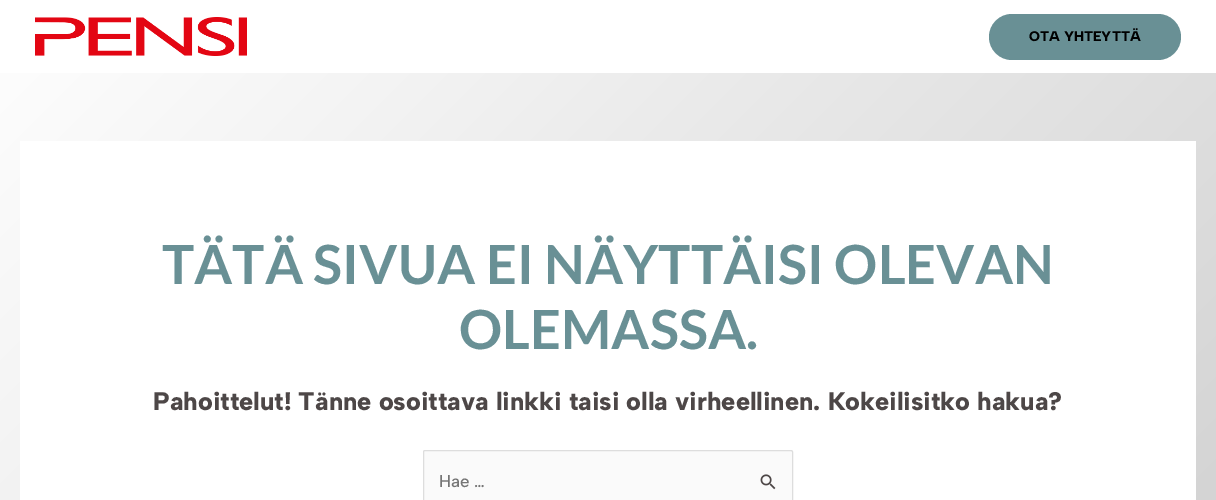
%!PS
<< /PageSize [1216 500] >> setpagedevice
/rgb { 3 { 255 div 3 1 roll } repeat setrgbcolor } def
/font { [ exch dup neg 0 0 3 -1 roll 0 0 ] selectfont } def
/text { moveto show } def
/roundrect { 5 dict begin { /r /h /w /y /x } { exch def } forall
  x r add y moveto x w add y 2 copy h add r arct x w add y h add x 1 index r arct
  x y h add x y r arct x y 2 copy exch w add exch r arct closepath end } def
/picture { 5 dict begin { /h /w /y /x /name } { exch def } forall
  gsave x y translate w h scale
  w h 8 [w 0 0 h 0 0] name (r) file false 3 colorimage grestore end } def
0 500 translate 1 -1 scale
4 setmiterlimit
255 255 255 rgb
0 0 1216 500 rectfill
gsave 0 73 moveto 1216 0 rlineto 0 427 rlineto -1216 0 rlineto closepath clip newpath
<< /ShadingType 2 /ColorSpace /DeviceRGB /Coords [92 -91 1125 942] /Extend [true true] /Function << /FunctionType 2 /Domain [0 1] /C0 [1 1 1] /C1 [0.796 0.796 0.796] /N 1 >> >> shfill grestore
(img_01.rgb) 35 17 212 39 picture
105 144 149 rgb
989 14 192 46 23 roundrect fill
255 255 255 rgb
20 141 1176 359 rectfill
250 250 250 rgb
423.5 450.5 369 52 1.5 roundrect gsave fill grestore
221 221 221 rgb
stroke
(img_02.rgb) 760 474 16 16 picture
/AlbertSans-ExtraBold 14 font
0 0 0 rgb
(OTA YHTEYTTÄ) 1029 41 text
/Lato-Bold 54 font
105 144 149 rgb
(TÄTÄ SIVUA EI NÄYTTÄISI OLEVAN) 162 284 text
(OLEMASSA.) 459 349 text
/AlbertSans-ExtraBold 25.5 font
77 71 71 rgb
(Pahoittelut! Tänne osoittava linkki taisi olla virheellinen. Kokeilisitko hakua?) 153 410 text
/AlbertSans-Medium 17 font
117 117 117 rgb
(Hae …) 439 487 text
showpage
